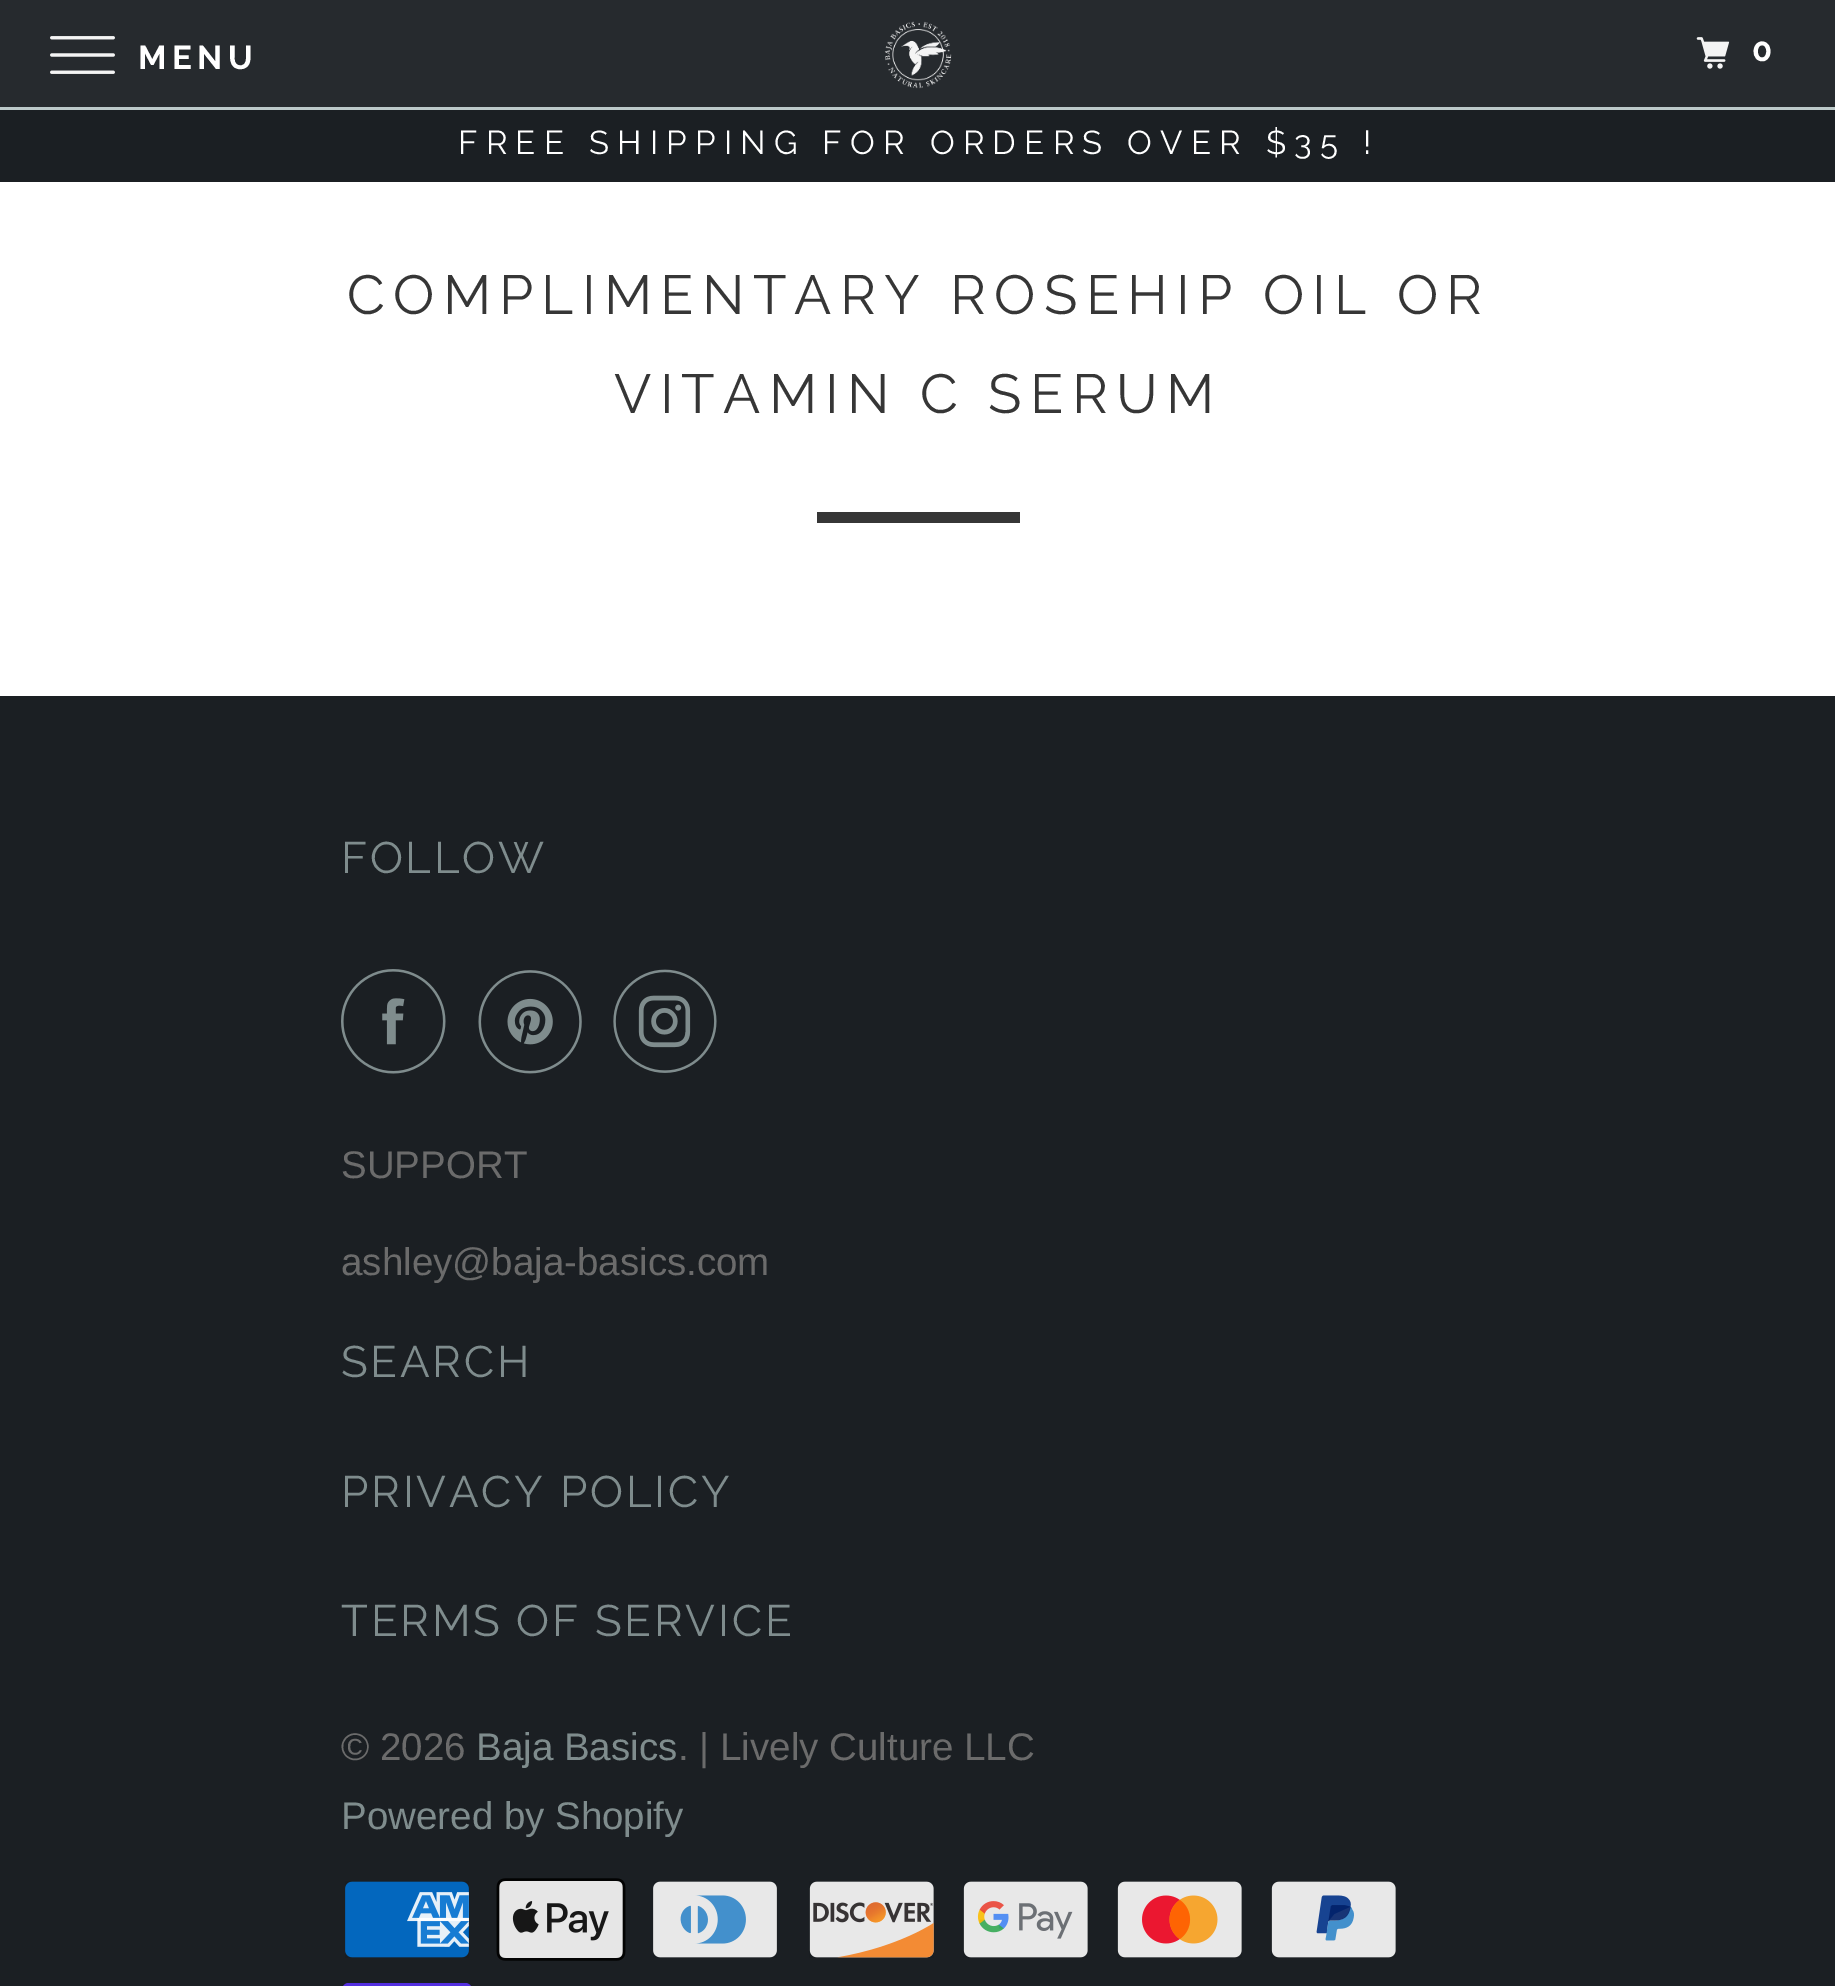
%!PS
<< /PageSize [1835 1986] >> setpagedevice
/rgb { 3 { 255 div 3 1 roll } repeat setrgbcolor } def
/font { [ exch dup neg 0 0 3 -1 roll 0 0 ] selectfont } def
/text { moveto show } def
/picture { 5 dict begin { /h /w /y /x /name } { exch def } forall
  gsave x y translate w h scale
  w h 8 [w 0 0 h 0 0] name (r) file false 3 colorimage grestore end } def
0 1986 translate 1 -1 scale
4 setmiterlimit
255 255 255 rgb
0 0 1835 1986 rectfill
38 42 46 rgb
0 0 1835 107 rectfill
188 201 201 rgb
0 107 1835 3 rectfill
(img_01.rgb) 50 36 65 38 picture
(img_02.rgb) 884 21 68 68 picture
(img_03.rgb) 1696 37 34 32 picture
27 31 35 rgb
0 110 1835 72 rectfill
54 54 54 rgb
817 512 203 11 rectfill
27 31 35 rgb
0 696 1835 1290 rectfill
(img_04.rgb) 341 969 105 105 picture
(img_05.rgb) 478 970 104 104 picture
(img_06.rgb) 613 969 104 104 picture
(img_07.rgb) 345 1881 124 77 picture
(img_08.rgb) 496 1878 130 83 picture
(img_09.rgb) 653 1881 124 77 picture
(img_10.rgb) 809 1881 125 77 picture
(img_11.rgb) 963 1881 125 77 picture
(img_12.rgb) 1117 1881 125 77 picture
(img_13.rgb) 1271 1881 125 77 picture
(img_14.rgb) 343 1983 128 3 picture
/Raleway-Bold 33 font
255 255 255 rgb
138 69 moveto 5.5 0 (MENU) ashow
1752 61 moveto 5.5 0 (0) ashow
/Raleway-Regular 33 font
458 154 moveto 8.25 0 (FREE SHIPPING FOR ORDERS OVER $35 !) ashow
/Raleway-Regular 55 font
54 54 54 rgb
347 314 moveto 8.25 0 (COMPLIMENTARY ROSEHIP OIL OR) ashow
614 413 moveto 8.25 0 (VITAMIN C SERUM) ashow
/Raleway-Regular 44 font
127 140 141 rgb
341 873 moveto 2.75 0 (FOLLOW) ashow
/LiberationSans-Regular 38.5 font
107 107 107 rgb
(SUPPORT) 341 1178 text
(ashley@baja-basics.com) 341 1275 text
/Raleway-Regular 44 font
127 140 141 rgb
341 1377 moveto 2.75 0 (SEARCH) ashow
341 1507 moveto 2.75 0 (PRIVACY POLICY) ashow
341 1636 moveto 2.75 0 (TERMS OF SERVICE) ashow
/LiberationSans-Regular 38.5 font
107 107 107 rgb
(© 2026) 341 1760 text
127 140 141 rgb
(Baja Basics) 476 1760 text
107 107 107 rgb
(. | Lively Culture LLC) 678 1760 text
127 140 141 rgb
(Powered by Shopify) 341 1829 text
showpage
